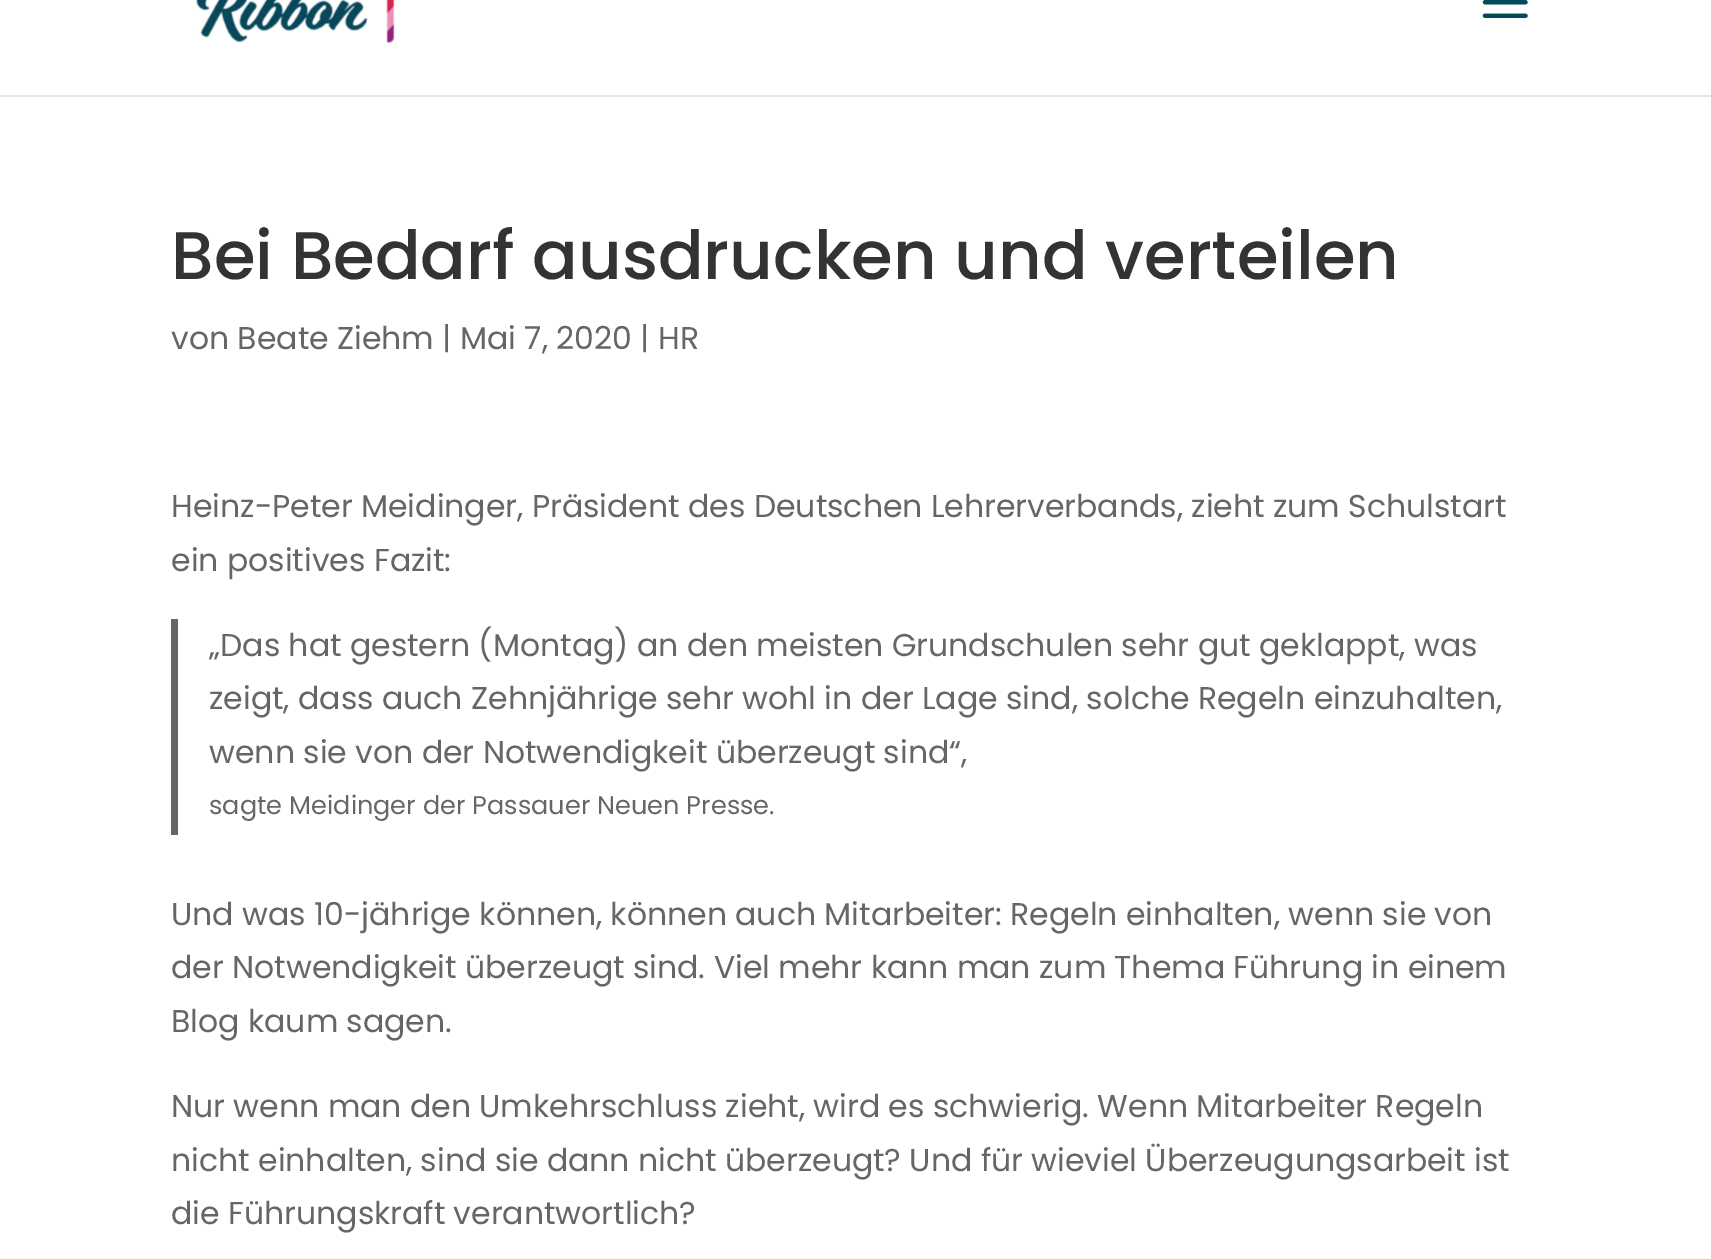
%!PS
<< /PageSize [1711 1259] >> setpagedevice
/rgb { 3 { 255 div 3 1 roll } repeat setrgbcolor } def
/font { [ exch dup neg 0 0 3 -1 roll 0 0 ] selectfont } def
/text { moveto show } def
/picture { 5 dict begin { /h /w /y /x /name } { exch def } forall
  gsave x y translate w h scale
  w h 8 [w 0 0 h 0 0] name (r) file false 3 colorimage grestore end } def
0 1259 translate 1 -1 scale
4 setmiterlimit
255 255 255 rgb
0 0 1711 1259 rectfill
230 230 230 rgb
0 95 1711 2 rectfill
(img_01.rgb) 195 0 200 43 picture
(img_02.rgb) 1482 0 46 18 picture
102 102 102 rgb
171 619 7 216 rectfill
/Poppins-Medium 67.5 font
51 51 51 rgb
(Bei Bedarf ausdrucken und verteilen) 171 279 text
/Poppins-Regular 31.5 font
102 102 102 rgb
(von Beate Ziehm | Mai 7, 2020 | HR) 171 349 text
(Heinz-Peter Meidinger, Präsident des Deutschen Lehrerverbands, zieht zum Schulstart) 171 517 text
(ein positives Fazit:) 171 571 text
(„Das hat gestern \(Montag\) an den meisten Grundschulen sehr gut geklappt, was) 209 656 text
(zeigt, dass auch Zehnjährige sehr wohl in der Lage sind, solche Regeln einzuhalten,) 209 709 text
(wenn sie von der Notwendigkeit überzeugt sind“,) 209 763 text
/Poppins-Regular 25.6 font
(sagte Meidinger der Passauer Neuen Presse.) 209 814 text
/Poppins-Regular 31.5 font
(Und was 10-jährige können, können auch Mitarbeiter: Regeln einhalten, wenn sie von) 171 925 text
(der Notwendigkeit überzeugt sind. Viel mehr kann man zum Thema Führung in einem) 171 978 text
(Blog kaum sagen.) 171 1032 text
(Nur wenn man den Umkehrschluss zieht, wird es schwierig. Wenn Mitarbeiter Regeln) 171 1117 text
(nicht einhalten, sind sie dann nicht überzeugt? Und für wieviel Überzeugungsarbeit ist) 171 1171 text
(die Führungskraft verantwortlich?) 171 1224 text
showpage
